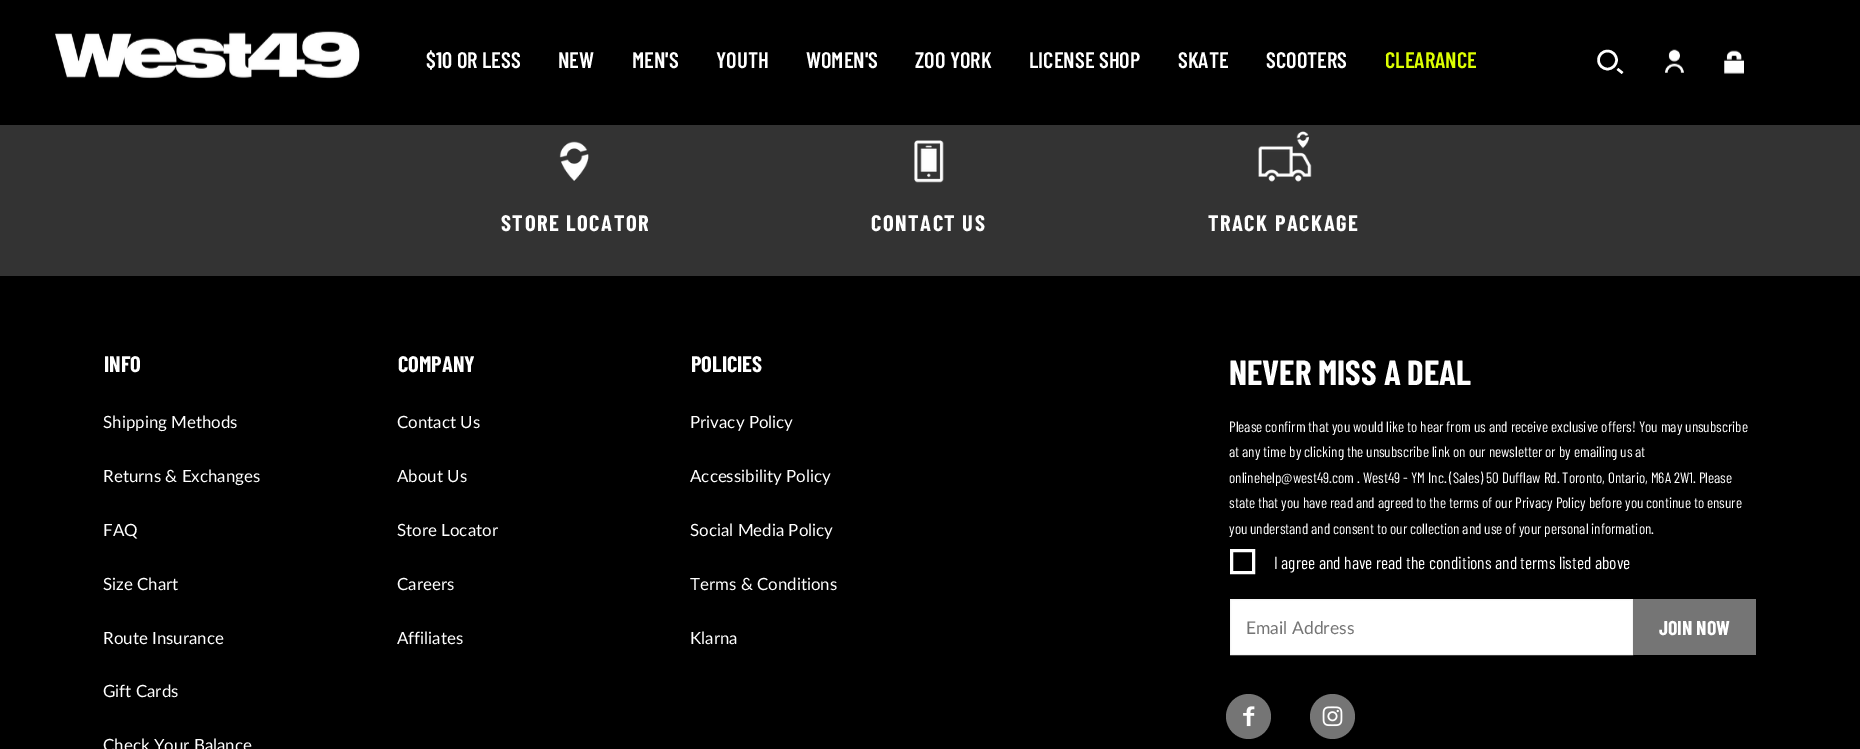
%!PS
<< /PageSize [1860 749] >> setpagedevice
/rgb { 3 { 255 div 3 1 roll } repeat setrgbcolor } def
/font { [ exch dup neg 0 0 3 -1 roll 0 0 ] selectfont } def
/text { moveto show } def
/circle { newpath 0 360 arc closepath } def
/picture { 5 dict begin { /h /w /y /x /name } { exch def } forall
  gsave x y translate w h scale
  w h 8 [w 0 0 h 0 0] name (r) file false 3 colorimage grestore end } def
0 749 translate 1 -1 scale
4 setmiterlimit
0 0 0 rgb
0 0 1860 749 rectfill
(img_01.rgb) 55 31 305 48 picture
255 255 255 rgb
2.5 setlinewidth
1607.5 60 9 circle stroke
1617.5 69 moveto 5 4 rlineto stroke
(img_02.rgb) 1665 49 19 24 picture
(img_03.rgb) 1724 50 20 24 picture
51 51 51 rgb
0 125 1860 151 rectfill
(img_04.rgb) 559 141 30 40 picture
(img_05.rgb) 914 140 30 43 picture
(img_06.rgb) 1258 131 54 51 picture
255 255 255 rgb
3 setlinewidth
1231.5 550.5 22 22 rectstroke
1230.5 599.5 moveto 402 0 rlineto 0 55 rlineto -402 0 rlineto closepath gsave fill grestore
246 246 246 rgb
1 setlinewidth
stroke
117 117 117 rgb
1633 599 123 56 rectfill
1248.5 716.5 22.5 circle fill
(img_07.rgb) 1243 706 12 21 picture
1332.5 716.5 22.5 circle fill
(img_08.rgb) 1322 706 21 21 picture
/BarlowCondensed-SemiBold 22.5 font
255 255 255 rgb
($10 OR LESS) 426 68 text
(NEW) 558 68 text
(MEN'S) 632 68 text
(YOUTH) 716 68 text
(WOMEN'S) 806 68 text
(ZOO YORK) 915 68 text
(LICENSE SHOP) 1029 68 text
(SKATE) 1178 68 text
(SCOOTERS) 1266 68 text
221 255 2 rgb
(CLEARANCE) 1385 68 text
/BarlowCondensed-Bold 22.5 font
255 255 255 rgb
501 231 moveto 1.5 0 (STORE LOCATOR) ashow
871 231 moveto 1.5 0 (CONTACT US) ashow
1208 231 moveto 1.5 0 (TRACK PACKAGE) ashow
(INFO) 104 372 text
/Lato-Regular 16.9 font
(Shipping Methods) 103 428 text
(Returns & Exchanges) 103 482 text
(FAQ) 103 536 text
(Size Chart) 103 590 text
(Route Insurance) 103 644 text
(Gift Cards) 103 697 text
(Check Your Balance) 103 751 text
/BarlowCondensed-Bold 22.5 font
(COMPANY) 398 372 text
/Lato-Regular 16.9 font
(Contact Us) 397 428 text
(About Us) 397 482 text
(Store Locator) 397 536 text
(Careers) 397 590 text
(Affiliates) 397 644 text
/BarlowCondensed-Bold 22.5 font
(POLICIES) 691 372 text
/Lato-Regular 16.9 font
(Privacy Policy) 690 428 text
(Accessibility Policy) 690 482 text
(Social Media Policy) 690 536 text
(Terms & Conditions) 690 590 text
(Klarna) 690 644 text
/BarlowCondensed-Bold 35 font
(NEVER MISS A DEAL) 1229 385 text
/BarlowCondensed-Regular 15 font
(Please confirm that you would like to hear from us and receive exclusive offers! You may unsubscribe) 1229 432 text
(at any time by clicking the unsubscribe link on our newsletter or by emailing us at) 1229 457 text
(onlinehelp@west49.com . West49 - YM Inc. \(Sales\) 50 Dufflaw Rd. Toronto, Ontario, M6A 2W1. Please) 1229 483 text
(state that you have read and agreed to the terms of our Privacy Policy before you continue to ensure) 1229 508 text
(you understand and consent to our collection and use of your personal information.) 1229 534 text
/BarlowCondensed-Regular 17.5 font
(I agree and have read the conditions and terms listed above) 1274 569 text
/Lato-Regular 17.5 font
117 117 117 rgb
(Email Address) 1246 634 text
/BarlowCondensed-Bold 20 font
255 255 255 rgb
(JOIN NOW) 1659 635 text
showpage
